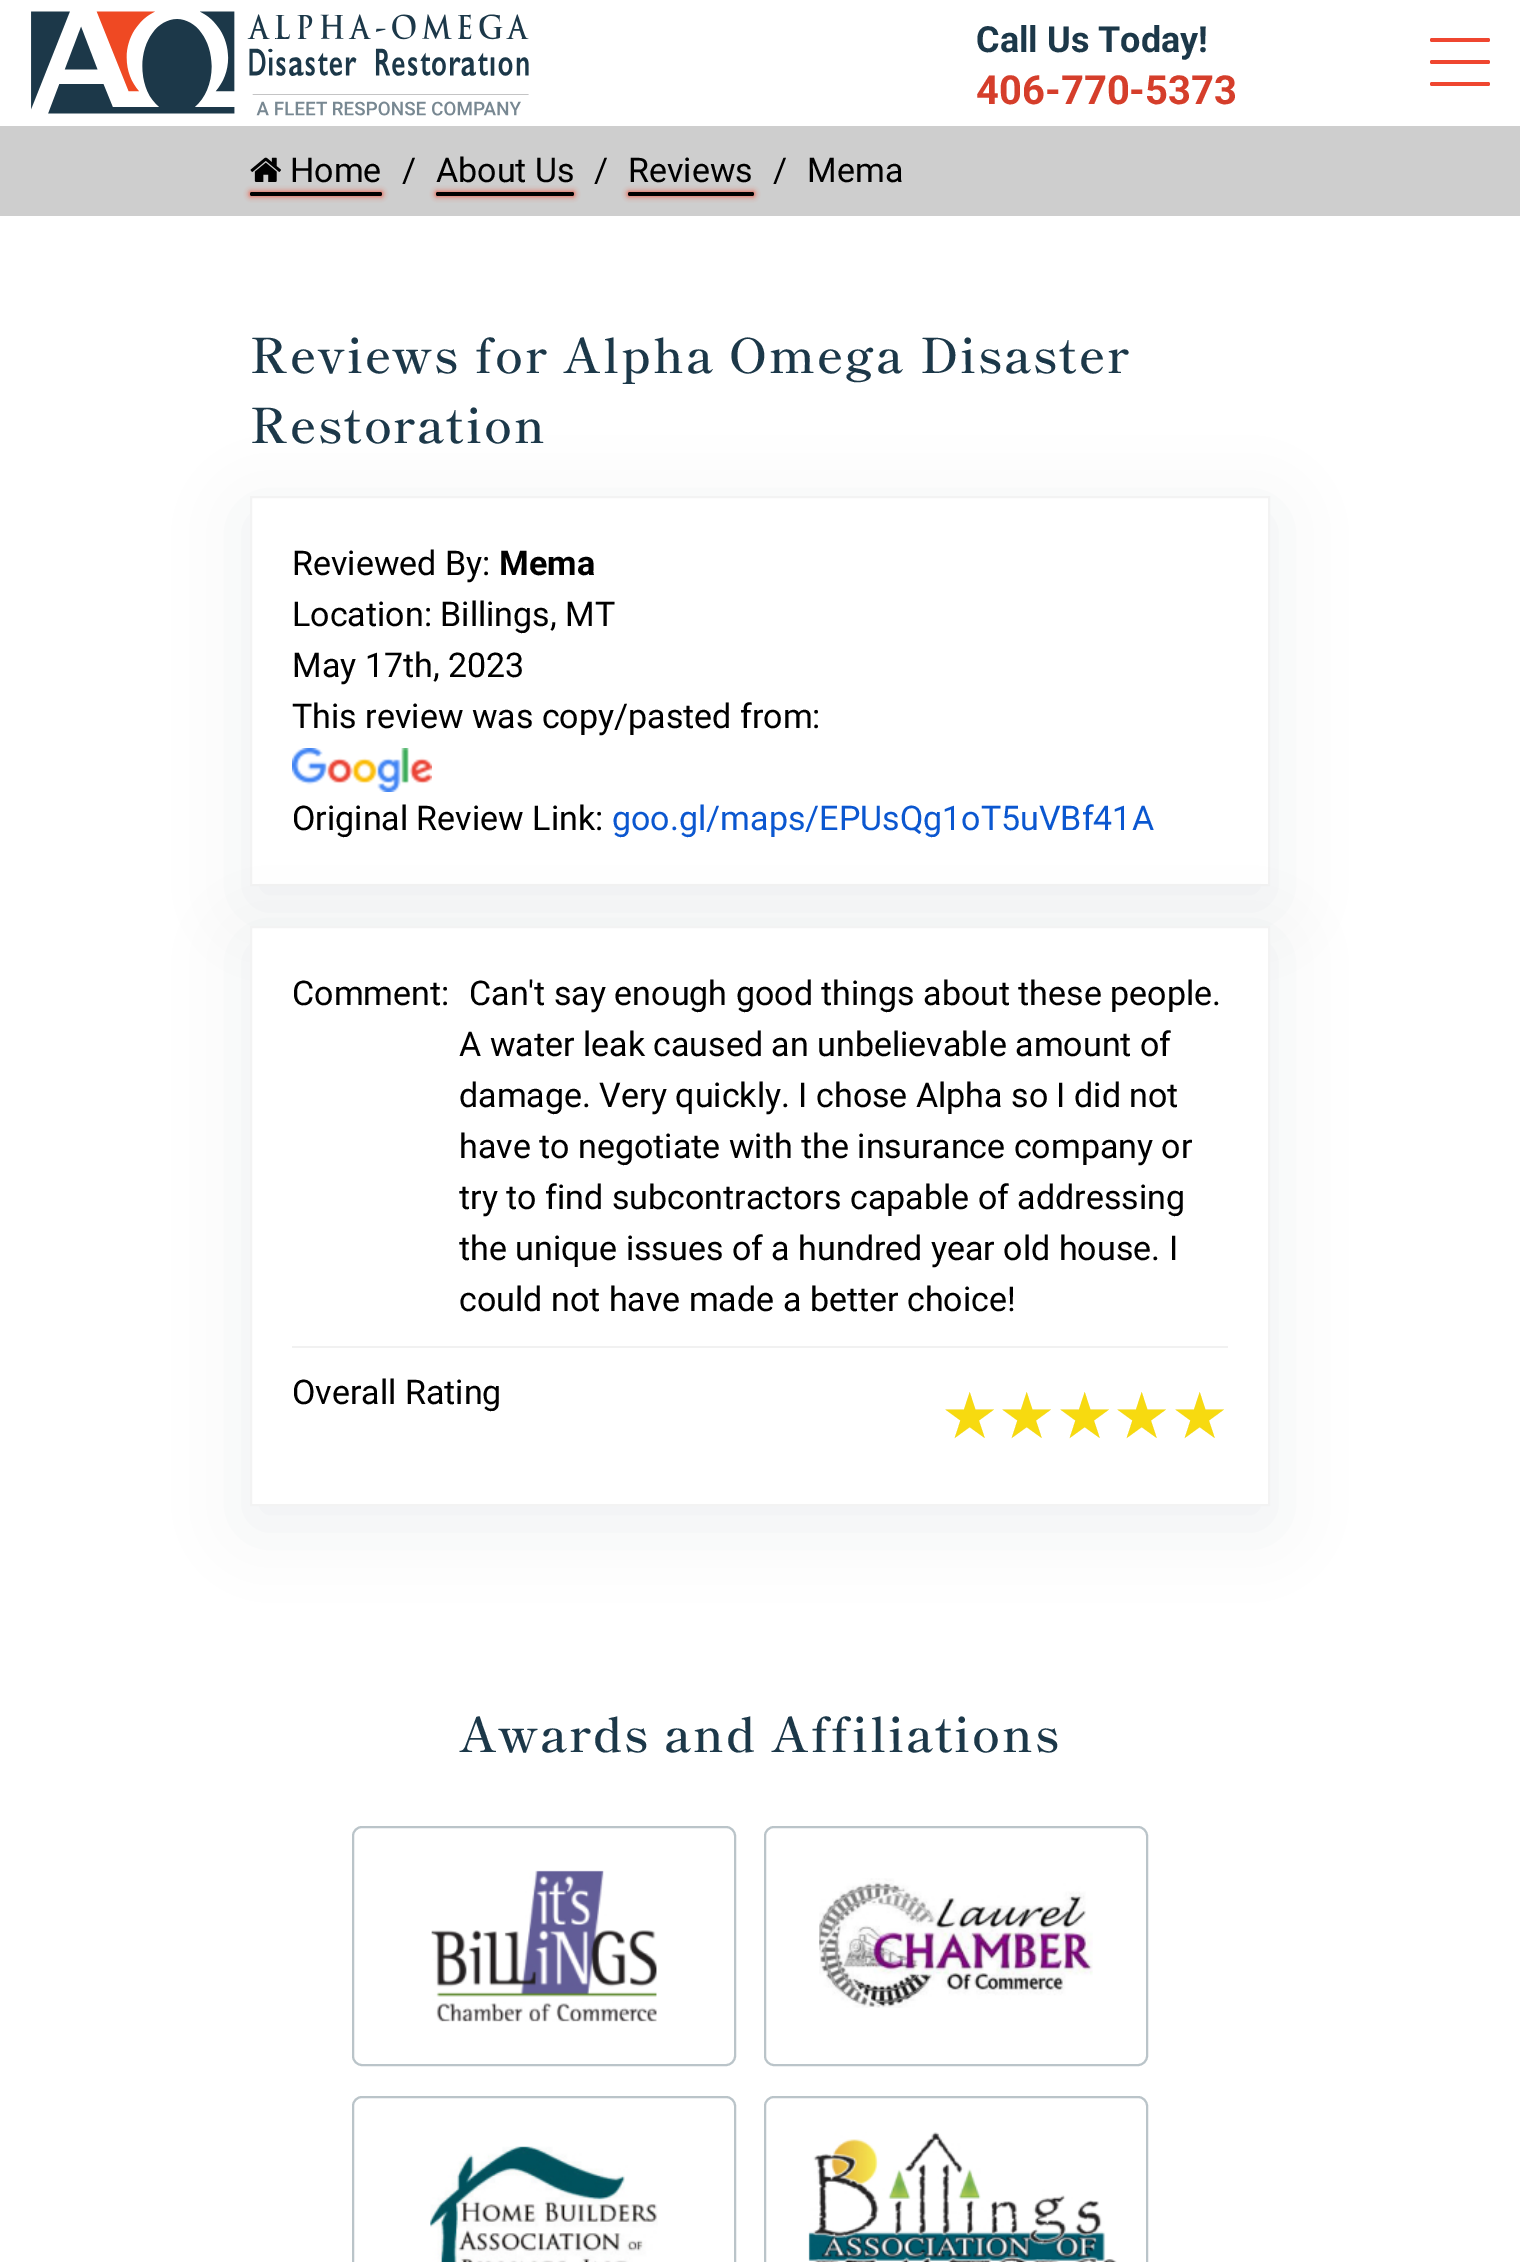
%!PS
<< /PageSize [1520 2262] /PageUsesTransparency true >> setpagedevice
/rgb { 3 { 255 div 3 1 roll } repeat setrgbcolor } def
/font { [ exch dup neg 0 0 3 -1 roll 0 0 ] selectfont } def
/text { moveto show } def
/alpha { dup .setfillconstantalpha .setstrokeconstantalpha } def
/roundrect { 5 dict begin { /r /h /w /y /x } { exch def } forall
  x r add y moveto x w add y 2 copy h add r arct x w add y h add x 1 index r arct
  x y h add x y r arct x y 2 copy exch w add exch r arct closepath end } def
/shadow { 12 dict begin { /a /b /q /h /w /y /x } { exch def } forall gsave /was 0 def
  9 -2 -9 { dup b mul 4 div /e exch def 1 sub .425 mul 2.718 exch exp 1 add a .99 .min exch div /now exch def
    1 1 now sub 1 was sub div sub alpha /was now def
    w h .min e 2 mul add 0 gt { x e sub y e sub w e 2 mul add h e 2 mul add
      q e add b .6 mul add w h .min 2 div e add .min 0 .max roundrect fill } if } for grestore end } def
/picture { 5 dict begin { /h /w /y /x /name } { exch def } forall
  gsave x y translate w h scale
  w h 8 [w 0 0 h 0 0] name (r) file false 3 colorimage grestore end } def
0 .pushpdf14devicefilter
0 2262 translate 1 -1 scale
4 setmiterlimit
255 255 255 rgb
0 0 1520 2262 rectfill
(img_01.rgb) 31 11 498 105 picture
239 70 48 rgb
1430 38 60 4 2 roundrect fill
1430 60 60 4 2 roundrect fill
1430 82 60 4 2 roundrect fill
206 206 206 rgb
0 126 1520 90 rectfill
(img_02.rgb) 250 157 31 25 picture
239 70 48 rgb
250 192 132 4 2 3 1 shadow
0 0 0 rgb
250 192 132 4 2 roundrect fill
239 70 48 rgb
436 192 138 4 2 3 1 shadow
0 0 0 rgb
436 192 138 4 2 roundrect fill
239 70 48 rgb
628 192 126 4 2 3 1 shadow
0 0 0 rgb
628 192 126 4 2 roundrect fill
gsave
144 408 moveto 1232 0 rlineto 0 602 rlineto -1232 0 rlineto closepath 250 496 moveto 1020 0 rlineto 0 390 rlineto -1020 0 rlineto closepath eoclip newpath
26 47 106 rgb
250 514 1020 390 0 35 0.07 shadow
grestore
243 243 243 rgb
2 setlinewidth
251 497 1018 388 rectstroke
(img_03.rgb) 292 748 140 44 picture
26 47 106 rgb
250 944 1020 580 0 35 0.07 shadow
255 255 255 rgb
251 927 moveto 1018 0 rlineto 0 578 rlineto -1018 0 rlineto closepath gsave fill grestore
243 243 243 rgb
stroke
241 241 241 rgb
292 1346 936 2 rectfill
186 196 201 rgb
353 1827 382 238 9 roundrect stroke
(img_04.rgb) 431 1870 226 152 picture
765 1827 382 238 9 roundrect stroke
(img_05.rgb) 819 1878 274 130 picture
353 2097 382 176 9 roundrect stroke
(img_06.rgb) 430 2146 228 116 picture
765 2097 382 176 9 roundrect stroke
(img_07.rgb) 808 2132 309 130 picture
/Roboto-Bold 36 font
28 56 73 rgb
(Call Us Today!) 976 52 text
/Roboto-Bold 40 font
213 62 43 rgb
(406-770-5373) 976 104 text
/Roboto-Regular 34 font
0 0 0 rgb
(Home) 290 182 text
(/) 402 182 text
(About Us) 436 182 text
(/) 594 182 text
(Reviews) 628 182 text
(/) 773 182 text
(Mema) 807 182 text
/ShipporiMincho-SemiBold 48 font
28 56 73 rgb
250 373 moveto 2 0 (Reviews for Alpha Omega Disaster) ashow
250 443 moveto 2 0 (Restoration) ashow
/Roboto-Regular 34 font
0 0 0 rgb
(Reviewed By:) 292 575 text
/Roboto-Bold 34 font
(Mema) 499 575 text
/Roboto-Regular 34 font
(Location: Billings, MT) 292 626 text
(May 17th, 2023) 292 677 text
(This review was copy/pasted from:) 292 728 text
(Original Review Link:) 292 830 text
11 87 208 rgb
(goo.gl/maps/EPUsQg1oT5uVBf41A) 612 830 text
0 0 0 rgb
(Comment:) 292 1005 text
(Can't say enough good things about these people.) 469 1005 text
(A water leak caused an unbelievable amount of) 459 1056 text
(damage. Very quickly. I chose Alpha so I did not) 459 1107 text
(have to negotiate with the insurance company or) 459 1158 text
(try to find subcontractors capable of addressing) 459 1209 text
(the unique issues of a hundred year old house. I) 459 1260 text
(could not have made a better choice!) 459 1311 text
(Overall Rating) 292 1404 text
/DejaVuSans-Regular 64 font
238 238 238 rgb
(★★★★★) 941 1438 text
247 218 16 rgb
(★★★★★) 941 1438 text
/ShipporiMincho-SemiBold 48 font
28 56 73 rgb
459 1752 moveto 2 0 (Awards and Affiliations) ashow
.poppdf14devicefilter showpage
